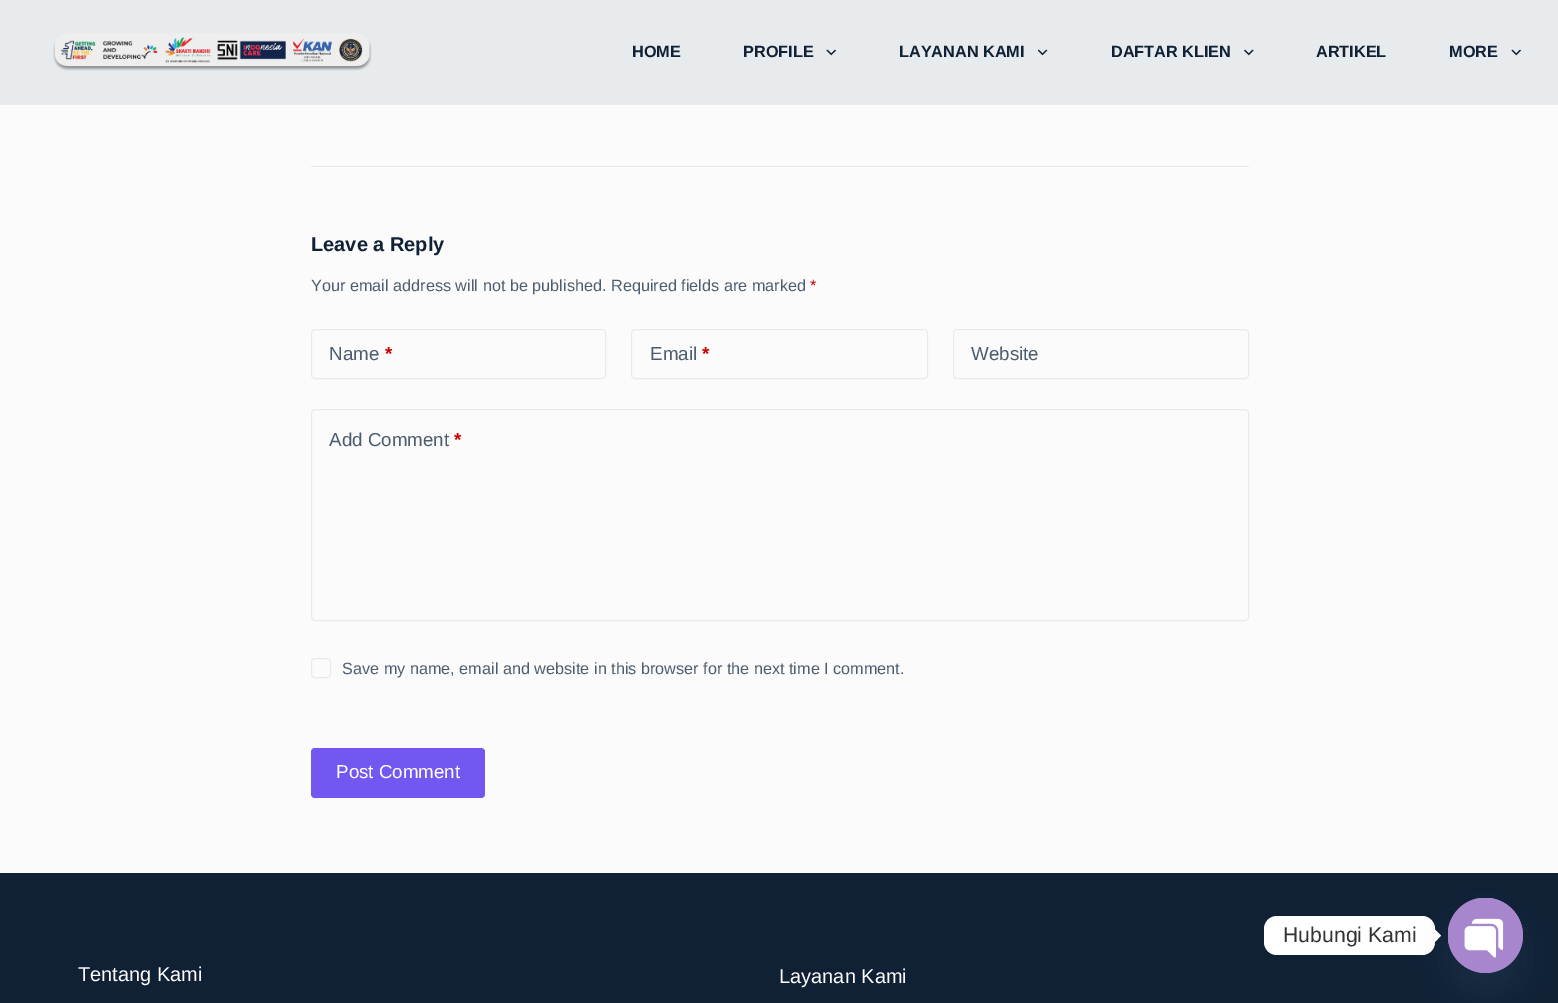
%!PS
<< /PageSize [1558 1003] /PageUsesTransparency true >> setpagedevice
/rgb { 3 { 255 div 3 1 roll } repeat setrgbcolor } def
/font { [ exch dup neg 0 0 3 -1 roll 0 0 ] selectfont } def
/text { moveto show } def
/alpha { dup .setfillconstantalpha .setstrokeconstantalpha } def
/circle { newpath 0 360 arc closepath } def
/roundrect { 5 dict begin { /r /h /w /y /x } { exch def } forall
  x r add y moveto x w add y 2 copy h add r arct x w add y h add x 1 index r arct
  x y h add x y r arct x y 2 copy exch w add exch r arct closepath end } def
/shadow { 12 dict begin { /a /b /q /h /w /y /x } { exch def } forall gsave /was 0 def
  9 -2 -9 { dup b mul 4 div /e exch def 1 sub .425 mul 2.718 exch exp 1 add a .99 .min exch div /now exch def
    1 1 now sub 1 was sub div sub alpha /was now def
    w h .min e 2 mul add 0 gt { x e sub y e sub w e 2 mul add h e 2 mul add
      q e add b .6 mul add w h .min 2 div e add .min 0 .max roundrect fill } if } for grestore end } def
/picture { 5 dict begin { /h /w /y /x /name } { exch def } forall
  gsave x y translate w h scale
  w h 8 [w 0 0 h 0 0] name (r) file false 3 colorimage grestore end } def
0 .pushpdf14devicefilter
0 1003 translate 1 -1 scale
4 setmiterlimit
251 251 252 rgb
0 0 1558 1003 rectfill
231 235 238 rgb
0 0 1558 105 rectfill
(img_01.rgb) 53 33 319 38 picture
(img_02.rgb) 826 49 10 7 picture
(img_03.rgb) 1038 49 10 7 picture
(img_04.rgb) 1244 49 10 7 picture
(img_02.rgb) 1511 49 10 7 picture
311 166 938 1 rectfill
311.5 329.5 294 49 3.5 roundrect stroke
631.5 329.5 296 49 3.5 roundrect stroke
953.5 329.5 295 49 3.5 roundrect stroke
311.5 409.5 937 211 3.5 roundrect stroke
311.5 658.5 19 19 3.5 roundrect stroke
116 86 241 rgb
311 748 174 50 4 roundrect fill
16 33 54 rgb
0 873 1558 130 rectfill
255 255 255 rgb
1264 916 171 39 13 roundrect fill
1435 942 moveto 0 -12.5 rlineto 6 6 rlineto closepath fill
73 104 126 rgb
1448 918 75 75 37.5 15 0.16 shadow
168 134 205 rgb
1485.5 935.5 37.5 circle fill
(img_05.rgb) 1448 898 75 75 picture
/LiberationSans-Bold 16.25 font
16 33 54 rgb
(HOME) 632 57 text
(PROFILE) 743 57 text
(LAYANAN KAMI) 899 57 text
(DAFTAR KLIEN) 1111 57 text
(ARTIKEL) 1316 57 text
(MORE) 1449 57 text
/LiberationSans-Bold 20 font
(Leave a Reply) 311 251 text
/LiberationSans-Regular 16.25 font
77 93 109 rgb
(Your email address will not be published. Required fields are marked) 311 291 text
204 0 0 rgb
(*) 810 291 text
/LiberationSans-Regular 18.75 font
77 93 109 rgb
(Name) 329 360 text
/LiberationSans-Bold 18.75 font
204 0 0 rgb
(*) 385 360 text
/LiberationSans-Regular 18.75 font
77 93 109 rgb
(Email) 650 360 text
/LiberationSans-Bold 18.75 font
204 0 0 rgb
(*) 702 360 text
/LiberationSans-Regular 18.75 font
77 93 109 rgb
(Website) 971 360 text
(Add Comment) 329 446 text
/LiberationSans-Bold 18.75 font
204 0 0 rgb
(*) 454 446 text
/LiberationSans-Regular 16.25 font
77 93 109 rgb
(Save my name, email and website in this browser for the next time I comment.) 342 674 text
/LiberationSans-Regular 18.75 font
255 255 255 rgb
(Post Comment) 336 778 text
/LiberationSans-Regular 20 font
(Tentang Kami) 78 981 text
(Layanan Kami) 779 983 text
/LiberationSans-Regular 21.25 font
51 51 51 rgb
(Hubungi Kami) 1283 942 text
.poppdf14devicefilter showpage
